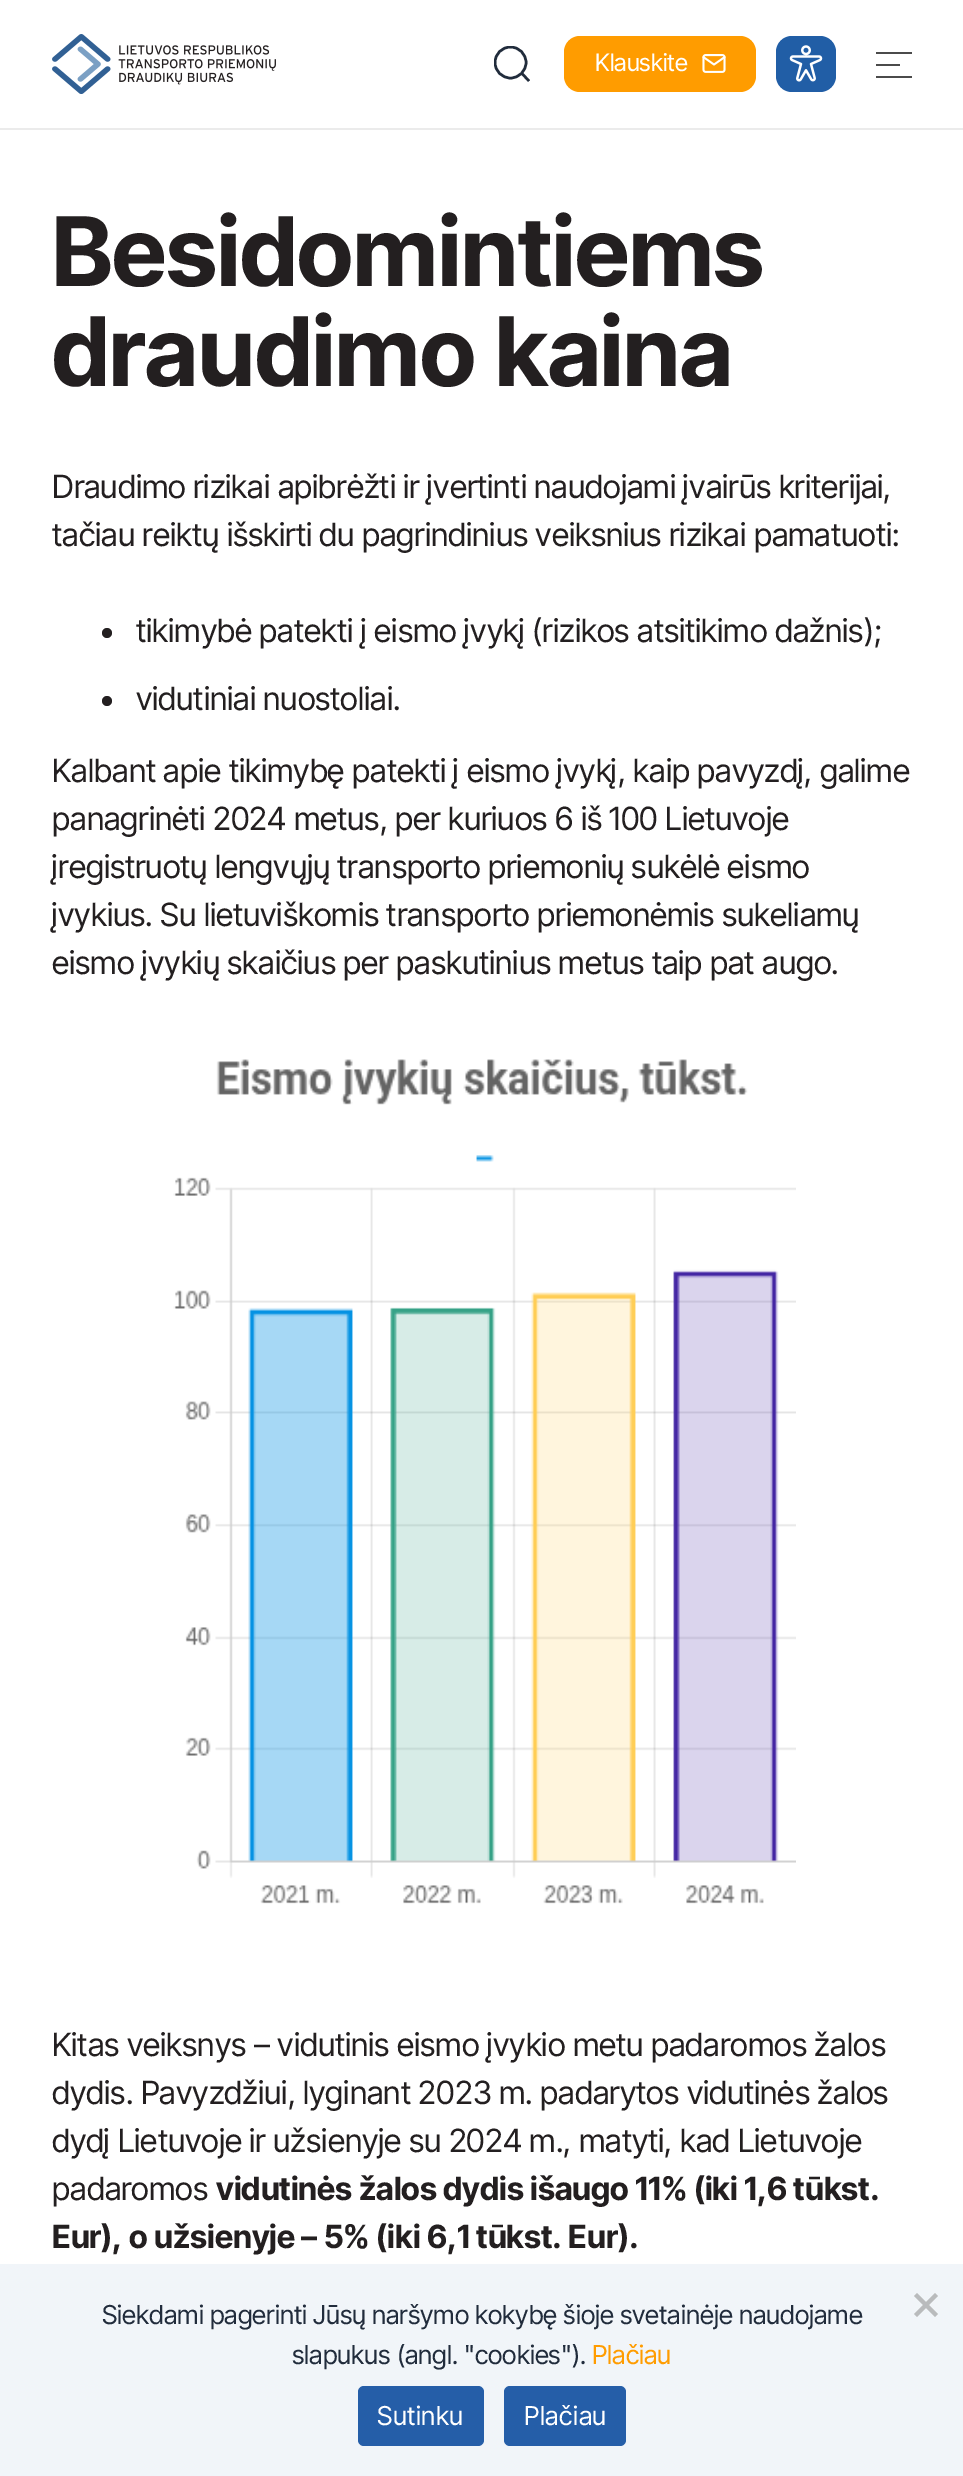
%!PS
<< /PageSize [963 2476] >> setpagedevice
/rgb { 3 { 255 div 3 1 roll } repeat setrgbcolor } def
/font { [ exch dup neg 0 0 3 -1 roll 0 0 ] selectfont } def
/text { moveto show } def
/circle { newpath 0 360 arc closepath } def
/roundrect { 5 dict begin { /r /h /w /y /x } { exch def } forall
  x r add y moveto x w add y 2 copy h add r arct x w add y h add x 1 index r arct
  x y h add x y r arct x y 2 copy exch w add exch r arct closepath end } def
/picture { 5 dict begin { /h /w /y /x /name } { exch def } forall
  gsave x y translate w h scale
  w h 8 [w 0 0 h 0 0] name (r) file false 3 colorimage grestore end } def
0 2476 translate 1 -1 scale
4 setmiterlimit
255 255 255 rgb
0 0 963 2476 rectfill
235 235 235 rgb
0 128 963 2 rectfill
(img_01.rgb) 52 34 224 60 picture
gsave
494 46 36 36 rectclip
33 44 60 rgb
2.5 setlinewidth
510.5 62.5 15.5 circle stroke
grestore
33 44 60 rgb
2.5 setlinewidth
522 73.5 moveto 7 7.5 rlineto stroke
255 156 0 rgb
564 36 192 56 16 roundrect fill
(img_02.rgb) 702 54 24 19 picture
33 94 166 rgb
776 36 60 56 16 roundrect fill
(img_03.rgb) 789 45 34 37 picture
75 75 75 rgb
876 52 36 2 rectfill
876 64 24 2 rectfill
876 76 36 2 rectfill
35 31 32 rgb
107 633 5 circle fill
107 701 5 circle fill
(img_04.rgb) 173 1059 623 845 picture
241 245 249 rgb
0 2264 963 212 rectfill
185 187 189 rgb
935 2293 moveto 3 3 rlineto -21 21 rlineto -3 -3 rlineto closepath fill
914 2296 moveto 3 -3 rlineto 21 21 rlineto -3 3 rlineto closepath fill
37 94 168 rgb
358 2386 126 60 6 roundrect fill
504 2386 122 60 6 roundrect fill
/InterTight-Regular 24 font
255 255 255 rgb
(Klauskite) 595 71 text
/InterTight-Bold 96 font
35 31 32 rgb
(Besidomintiems) 52 286 text
(draudimo kaina) 52 386 text
/InterTight-Regular 32 font
(Draudimo rizikai apibrėžti ir įvertinti naudojami įvairūs kriterijai,) 52 498 text
(tačiau reiktų išskirti du pagrindinius veiksnius rizikai pamatuoti:) 52 546 text
(tikimybė patekti į eismo įvykį \(rizikos atsitikimo dažnis\);) 136 642 text
(vidutiniai nuostoliai.) 136 710 text
(Kalbant apie tikimybę patekti į eismo įvykį, kaip pavyzdį, galime) 52 782 text
(panagrinėti 2024 metus, per kuriuos 6 iš 100 Lietuvoje) 52 830 text
(įregistruotų lengvųjų transporto priemonių sukėlė eismo) 52 878 text
(įvykius. Su lietuviškomis transporto priemonėmis sukeliamų) 52 926 text
(eismo įvykių skaičius per paskutinius metus taip pat augo.) 52 974 text
(Kitas veiksnys – vidutinis eismo įvykio metu padaromos žalos) 52 2056 text
(dydis. Pavyzdžiui, lyginant 2023 m. padarytos vidutinės žalos) 52 2104 text
(dydį Lietuvoje ir užsienyje su 2024 m., matyti, kad Lietuvoje) 52 2152 text
(padaromos) 52 2200 text
/InterTight-Bold 32 font
(vidutinės žalos dydis išaugo 11% \(iki 1,6 tūkst.) 216 2200 text
(Eur\), o užsienyje – 5% \(iki 6,1 tūkst. Eur\).) 52 2248 text
/InterTight-Regular 26 font
33 44 60 rgb
(Siekdami pagerinti Jūsų naršymo kokybę šioje svetainėje naudojame) 102 2324 text
(slapukus \(angl. "cookies"\).) 292 2364 text
255 156 0 rgb
(Plačiau) 592 2364 text
255 255 255 rgb
377 2425 moveto 0.5 0 (Sutinku) ashow
524 2425 moveto 0.5 0 (Plačiau) ashow
showpage
